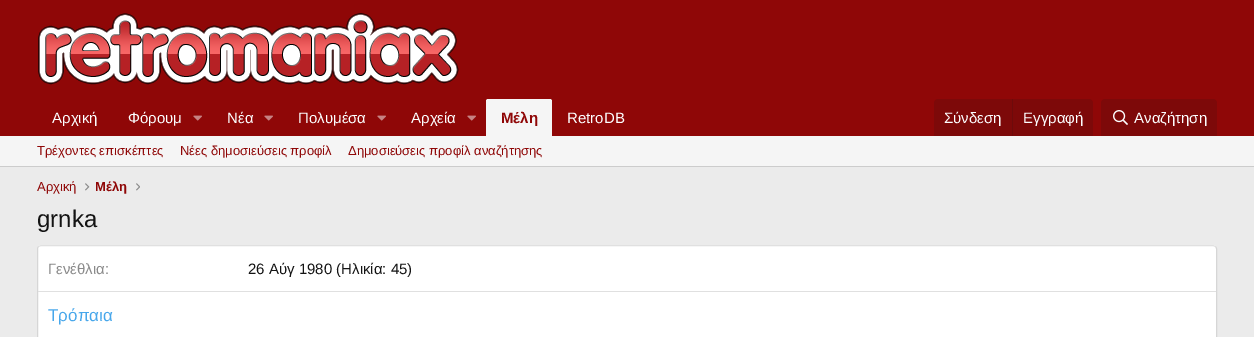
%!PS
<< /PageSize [1254 337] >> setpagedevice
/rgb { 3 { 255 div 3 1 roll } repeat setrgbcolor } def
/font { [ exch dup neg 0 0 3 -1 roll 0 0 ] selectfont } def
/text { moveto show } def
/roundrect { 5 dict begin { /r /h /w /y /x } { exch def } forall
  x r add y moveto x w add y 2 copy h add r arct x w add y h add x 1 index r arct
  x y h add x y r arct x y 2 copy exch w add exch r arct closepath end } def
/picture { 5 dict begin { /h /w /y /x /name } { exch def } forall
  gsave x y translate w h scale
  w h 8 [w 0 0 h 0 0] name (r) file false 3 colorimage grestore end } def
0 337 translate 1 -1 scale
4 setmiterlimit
235 235 235 rgb
0 0 1254 337 rectfill
143 7 7 rgb
0 0 1254 136 rectfill
(img_01.rgb) 38 13 421 72 picture
(img_02.rgb) 193 115 9 6 picture
(img_02.rgb) 264 115 9 6 picture
(img_02.rgb) 377 115 9 6 picture
(img_02.rgb) 467 115 9 6 picture
245 245 245 rgb
488 99 moveto 62 0 rlineto 1 0 2 1 2 2 rcurveto 0 35 rlineto -66 0 rlineto 0 -35 rlineto 0 -1 1 -2 2 -2 rcurveto closepath fill
125 9 9 rgb
938 99 moveto 151 0 rlineto 2 0 4 2 4 4 rcurveto 0 33 rlineto -159 0 rlineto 0 -33 rlineto 0 -2 2 -4 4 -4 rcurveto closepath fill
109 11 11 rgb
1012 99 1 37 rectfill
125 9 9 rgb
1105 99 moveto 108 0 rlineto 2 0 4 2 4 4 rcurveto 0 33 rlineto -116 0 rlineto 0 -33 rlineto 0 -2 2 -4 4 -4 rcurveto closepath fill
(img_03.rgb) 1113 110 15 15 picture
245 245 245 rgb
0 136 1254 30 rectfill
204 204 204 rgb
0 166 1254 1 rectfill
(img_04.rgb) 85 183 5 8 picture
(img_05.rgb) 136 183 4 8 picture
255 255 255 rgb
37 245 1180 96 4 roundrect fill
224 224 224 rgb
38.5 246.5 moveto 2.5 -1 rlineto 1172 0 rlineto 2.5 1 rlineto stroke
214 214 214 rgb
1215.5 246.5 moveto 0.5 0.5 1 1.5 1 2.5 rcurveto 0 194 rlineto 0 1 -0.5 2 -1 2.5 rcurveto stroke
38.5 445.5 moveto -0.5 -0.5 -1 -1.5 -1 -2.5 rcurveto 0 -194 rlineto 0 -1 0.5 -2 1 -2.5 rcurveto stroke
224 224 224 rgb
38 291 1178 1 rectfill
/LiberationSans-Regular 15 font
253 254 255 rgb
(Αρχική) 52 123 text
(Φόρουμ) 128 123 text
(Νέα) 227 123 text
(Πολυμέσα) 298 123 text
(Αρχεία) 411 123 text
/LiberationSans-Bold 15 font
143 7 7 rgb
(Μέλη) 501 123 text
/LiberationSans-Regular 15 font
253 254 255 rgb
(RetroDB) 567 123 text
(Σύνδεση) 944 123 text
(Εγγραφή) 1023 123 text
(Αναζήτηση) 1134 123 text
/LiberationSans-Regular 13 font
143 7 7 rgb
(Τρέχοντες επισκέπτες) 37 155 text
(Νέες δημοσιεύσεις προφίλ) 180 155 text
(Δημοσιεύσεις προφίλ αναζήτησης) 348 155 text
(Αρχική) 37 191 text
/LiberationSans-Bold 13 font
(Μέλη) 95 191 text
/LiberationSans-Regular 24 font
20 20 20 rgb
(grnka) 37 227 text
/LiberationSans-Regular 15 font
138 138 138 rgb
(Γενέθλια:) 48 274 text
20 20 20 rgb
(26 Αύγ 1980 \(Ηλικία: 45\)) 248 274 text
/LiberationSans-Regular 17 font
71 167 235 rgb
(Τρόπαια) 48 321 text
showpage
